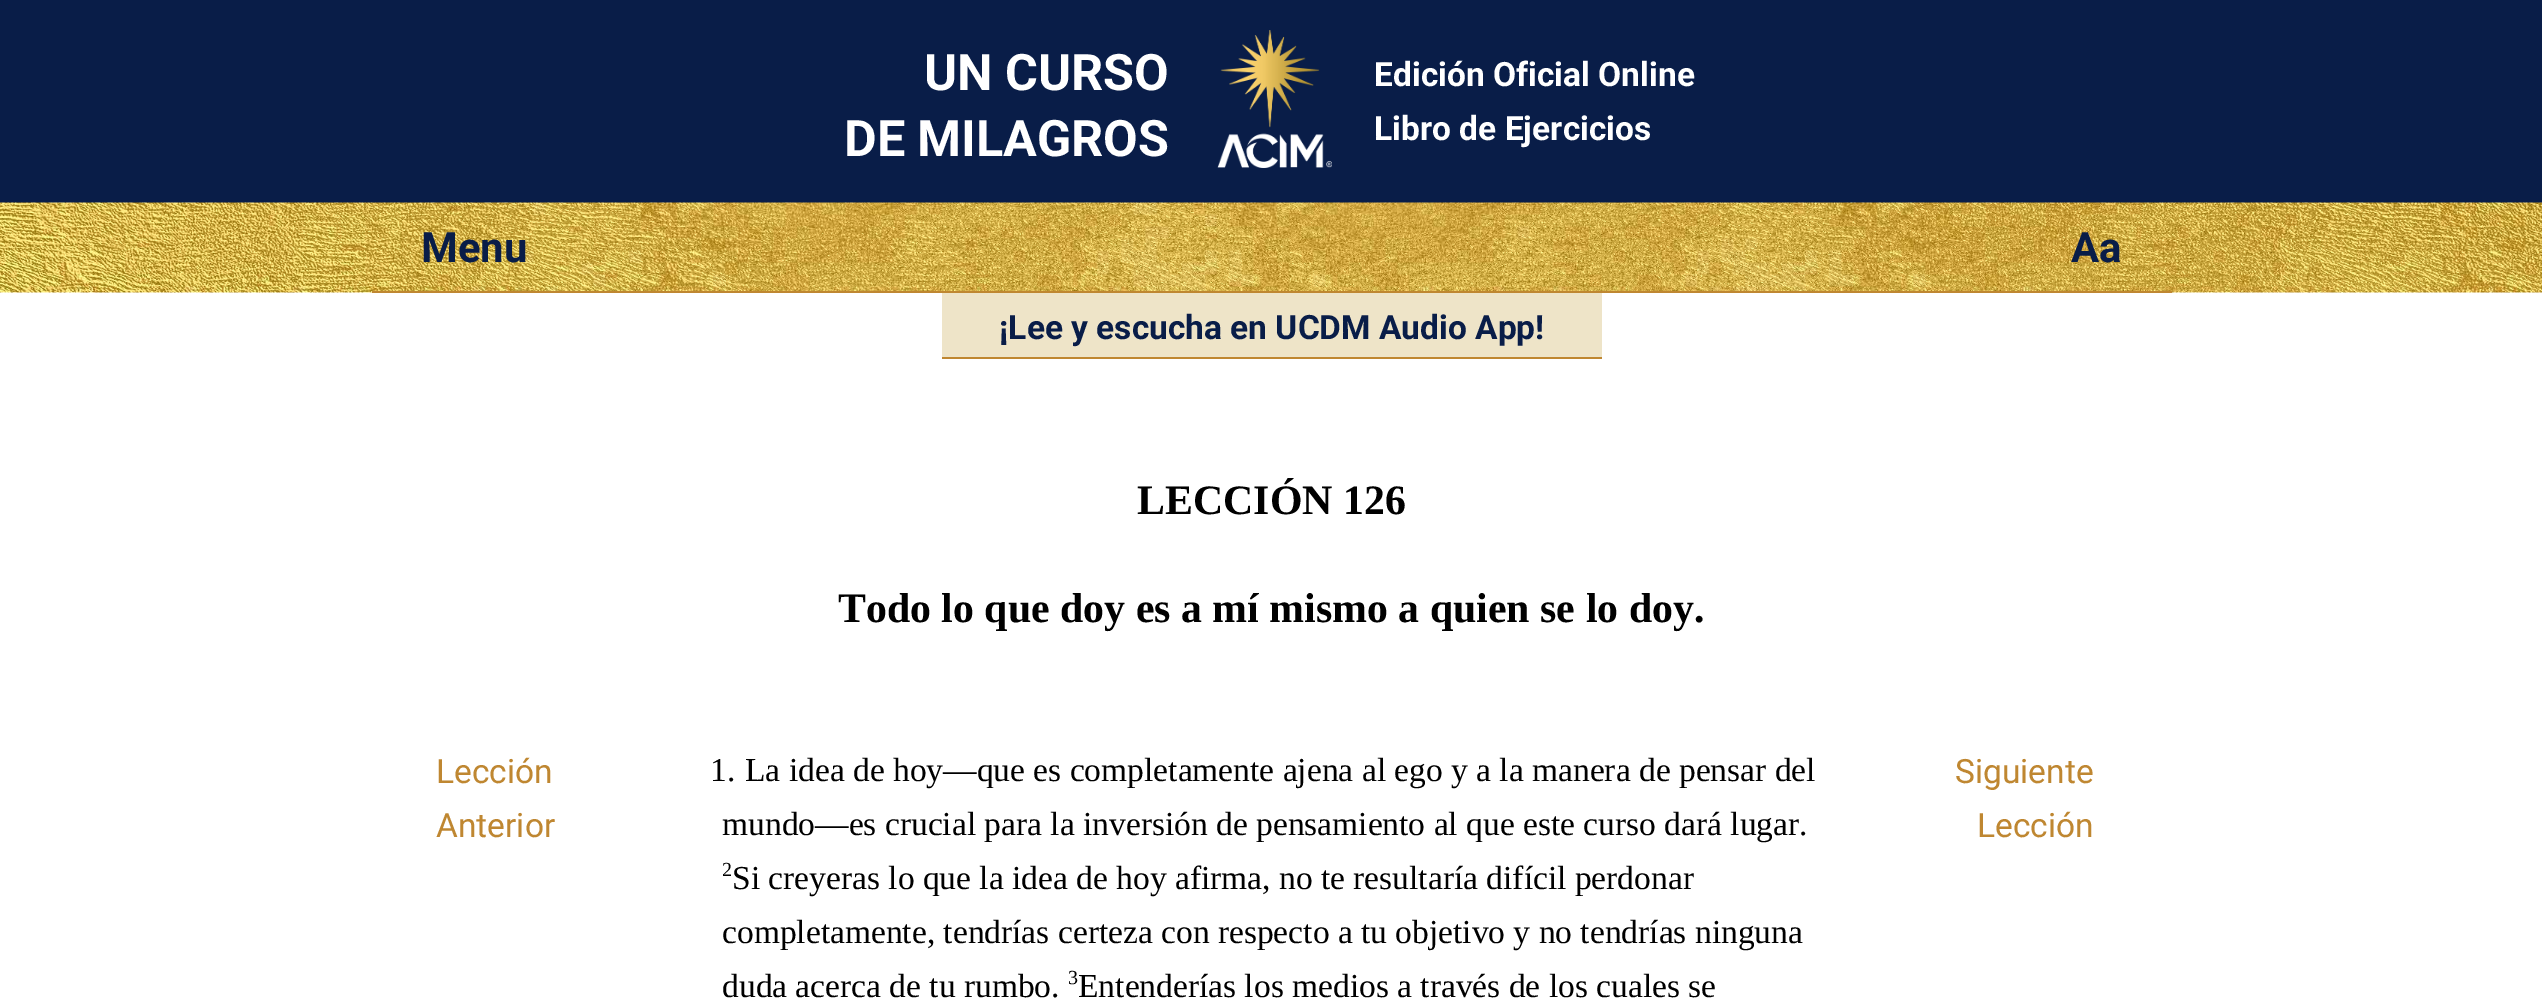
%!PS
<< /PageSize [2542 1001] >> setpagedevice
/rgb { 3 { 255 div 3 1 roll } repeat setrgbcolor } def
/font { [ exch dup neg 0 0 3 -1 roll 0 0 ] selectfont } def
/text { moveto show } def
/picture { 5 dict begin { /h /w /y /x /name } { exch def } forall
  gsave x y translate w h scale
  w h 8 [w 0 0 h 0 0] name (r) file false 3 colorimage grestore end } def
0 1001 translate 1 -1 scale
4 setmiterlimit
255 255 255 rgb
0 0 2542 1001 rectfill
9 29 72 rgb
0 0 2542 203 rectfill
(img_01.rgb) 1217 30 115 138 picture
(img_02.rgb) 0 202 2542 91 picture
191 135 49 rgb
372 291 1800 2 rectfill
238 228 200 rgb
942 293 660 64 rectfill
191 135 49 rgb
942 357 660 2 rectfill
/Roboto-Bold 50.25 font
255 255 255 rgb
(UN CURSO) 924 90 text
(DE MILAGROS) 844 156 text
/Roboto-Bold 33.5 font
(Edición Oficial Online) 1374 86 text
(Libro de Ejercicios) 1374 140 text
/Roboto-Bold 41.85 font
9 29 72 rgb
(Menu) 421 262 text
(Aa) 2071 262 text
/Roboto-Bold 33.5 font
(¡Lee y escucha en UCDM Audio App!) 999 339 text
/LiberationSerif-Bold 41.85 font
0 0 0 rgb
(LECCIÓN 126) 1137 514 text
(Todo lo que doy es a mí mismo a quien se lo doy.) 838 622 text
/Roboto-Regular 33.5 font
191 135 49 rgb
(Lección) 436 783 text
(Anterior) 436 837 text
/LiberationSerif-Regular 33.5 font
0 0 0 rgb
(1.) 710 781 text
(La idea de hoy—que es completamente ajena al ego y a la manera de pensar del) 745 781 text
(mundo—es crucial para la inversión de pensamiento al que este curso dará lugar.) 722 835 text
/LiberationSerif-Regular 20 font
(2) 722 876 text
/LiberationSerif-Regular 33.5 font
(Si creyeras lo que la idea de hoy afirma, no te resultaría difícil perdonar) 732 889 text
(completamente, tendrías certeza con respecto a tu objetivo y no tendrías ninguna) 722 943 text
(duda acerca de tu rumbo.) 722 997 text
/LiberationSerif-Regular 20 font
(3) 1068 984 text
/LiberationSerif-Regular 33.5 font
(Entenderías los medios a través de los cuales se) 1078 997 text
/Roboto-Regular 33.5 font
191 135 49 rgb
(Siguiente) 1955 783 text
(Lección) 1977 837 text
showpage
